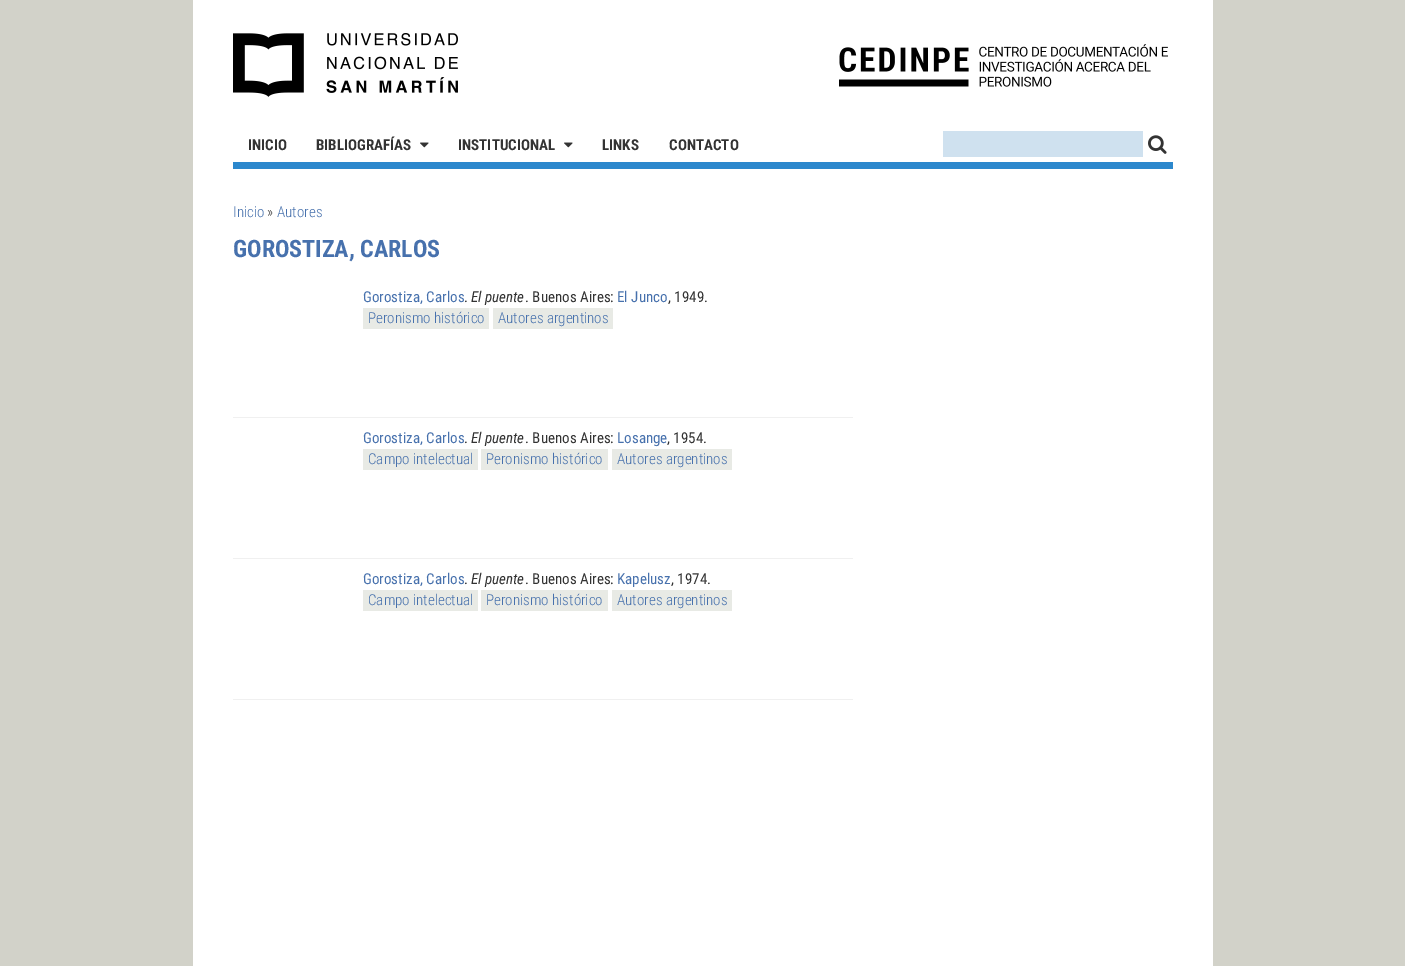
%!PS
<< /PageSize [1405 966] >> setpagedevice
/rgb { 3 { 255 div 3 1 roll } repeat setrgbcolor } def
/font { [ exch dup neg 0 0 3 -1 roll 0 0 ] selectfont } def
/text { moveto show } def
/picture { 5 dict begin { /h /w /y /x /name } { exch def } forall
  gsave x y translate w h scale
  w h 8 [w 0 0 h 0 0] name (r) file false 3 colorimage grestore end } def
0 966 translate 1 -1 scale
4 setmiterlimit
210 210 201 rgb
0 0 1405 966 rectfill
255 255 255 rgb
193 0 1020 966 rectfill
(img_01.rgb) 233 33 225 64 picture
(img_02.rgb) 839 44 329 43 picture
44 136 205 rgb
233 162 940 7 rectfill
(img_03.rgb) 420 142 9 6 picture
(img_03.rgb) 564 142 9 6 picture
207 225 239 rgb
943 131 200 26 rectfill
(img_04.rgb) 1148 135 19 19 picture
240 240 240 rgb
233 417 620 1 rectfill
232 234 229 rgb
363 308 126 21 rectfill
493 308 120 21 rectfill
240 240 240 rgb
233 558 620 1 rectfill
232 234 229 rgb
363 449 115 21 rectfill
481 449 127 21 rectfill
612 449 120 21 rectfill
240 240 240 rgb
233 699 620 1 rectfill
232 234 229 rgb
363 590 115 21 rectfill
481 590 127 21 rectfill
612 590 120 21 rectfill
/RobotoCondensed-Bold 15 font
51 51 51 rgb
(INICIO) 248 150 text
(BIBLIOGRAFÍAS) 316 150 text
(INSTITUCIONAL) 458 150 text
(LINKS) 602 150 text
(CONTACTO) 669 150 text
/RobotoCondensed-Light 15 font
71 113 173 rgb
(Inicio) 233 217 text
51 51 51 rgb
(») 267 217 text
71 113 173 rgb
(Autores) 277 217 text
/RobotoCondensed-Bold 24 font
(GOROSTIZA, CARLOS) 233 257 text
/RobotoCondensed-Regular 15 font
(Gorostiza, Carlos) 363 302 text
51 51 51 rgb
(.) 464 302 text
/RobotoCondensed-Italic 15 font
(El puente) 471 302 text
/RobotoCondensed-Regular 15 font
(. Buenos Aires:) 525 302 text
71 113 173 rgb
(El Junco) 617 302 text
51 51 51 rgb
(, 1949.) 668 302 text
/RobotoCondensed-Light 15 font
71 113 173 rgb
(Peronismo histórico) 368 323 text
(Autores argentinos) 498 323 text
/RobotoCondensed-Regular 15 font
(Gorostiza, Carlos) 363 443 text
51 51 51 rgb
(.) 464 443 text
/RobotoCondensed-Italic 15 font
(El puente) 471 443 text
/RobotoCondensed-Regular 15 font
(. Buenos Aires:) 525 443 text
71 113 173 rgb
(Losange) 617 443 text
51 51 51 rgb
(, 1954.) 667 443 text
/RobotoCondensed-Light 15 font
71 113 173 rgb
(Campo intelectual) 368 464 text
(Peronismo histórico) 486 464 text
(Autores argentinos) 617 464 text
/RobotoCondensed-Regular 15 font
(Gorostiza, Carlos) 363 584 text
51 51 51 rgb
(.) 464 584 text
/RobotoCondensed-Italic 15 font
(El puente) 471 584 text
/RobotoCondensed-Regular 15 font
(. Buenos Aires:) 525 584 text
71 113 173 rgb
(Kapelusz) 617 584 text
51 51 51 rgb
(, 1974.) 671 584 text
/RobotoCondensed-Light 15 font
71 113 173 rgb
(Campo intelectual) 368 605 text
(Peronismo histórico) 486 605 text
(Autores argentinos) 617 605 text
showpage
